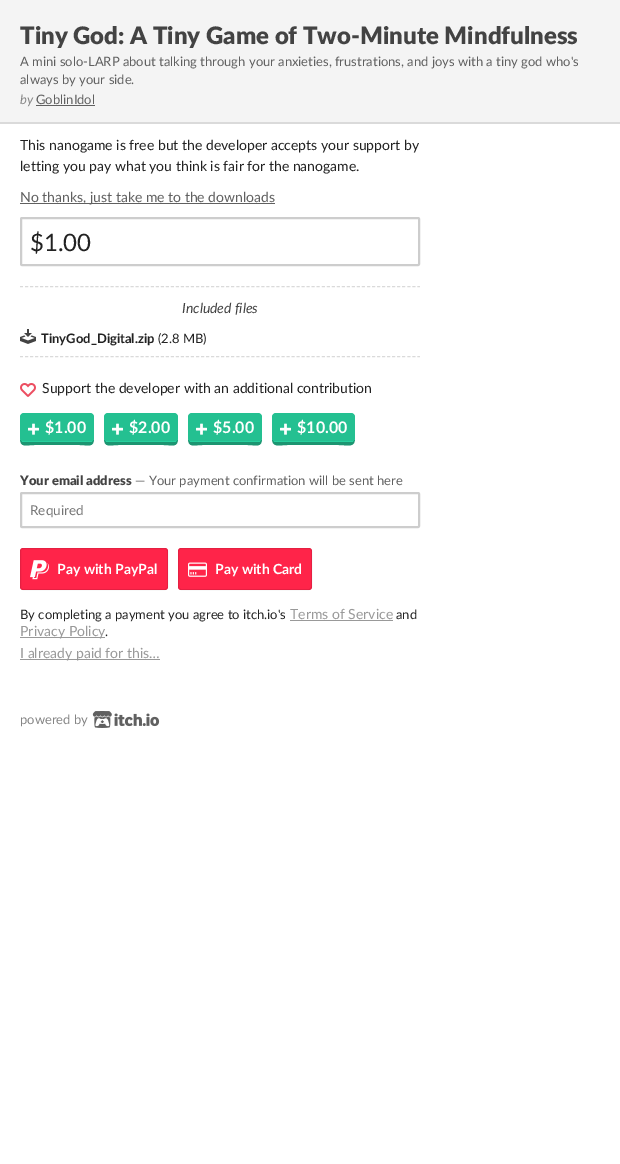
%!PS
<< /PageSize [620 1164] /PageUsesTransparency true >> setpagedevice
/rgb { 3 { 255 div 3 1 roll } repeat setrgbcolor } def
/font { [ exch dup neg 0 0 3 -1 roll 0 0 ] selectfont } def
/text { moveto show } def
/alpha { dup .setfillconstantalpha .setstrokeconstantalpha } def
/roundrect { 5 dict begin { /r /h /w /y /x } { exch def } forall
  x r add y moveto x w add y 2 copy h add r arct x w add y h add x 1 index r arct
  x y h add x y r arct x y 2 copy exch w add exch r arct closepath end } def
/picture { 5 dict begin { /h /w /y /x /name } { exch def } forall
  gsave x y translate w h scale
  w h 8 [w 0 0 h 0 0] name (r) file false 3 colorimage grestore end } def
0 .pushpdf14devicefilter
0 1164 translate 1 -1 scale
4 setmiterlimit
255 255 255 rgb
0 0 620 1164 rectfill
244 244 244 rgb
0 0 620 122 rectfill
218 218 218 rgb
0 122 620 2 rectfill
96 96 96 rgb
36 105 59 1 rectfill
20 203 255 1 rectfill
205 205 205 rgb
2 setlinewidth
21 218 398 47 1 roundrect stroke
218 218 218 rgb
1 setlinewidth
[3 2.03] 0 setdash
20 286.5 moveto 400 0 rlineto stroke
20 356.5 moveto 400 0 rlineto stroke
(img_01.rgb) 20 329 16 15 picture
(img_02.rgb) 20 383 16 14 picture
28 149 113 rgb
20 438 moveto 0 10 5 7 15 7 rcurveto 44 0 rlineto 10 0 15 3 15 -7 rcurveto 0 2 -2 4 -4 4 rcurveto -66 0 rlineto -2 0 -4 -2 -4 -4 rcurveto closepath fill
36 192 145 rgb
20 413 74 29 4 roundrect fill
39 209 158 rgb
22 441 70 1 rectfill
(img_03.rgb) 28 423 11 12 picture
28 149 113 rgb
104 438 moveto 0 10 5 7 15 7 rcurveto 44 0 rlineto 10 0 15 3 15 -7 rcurveto 0 2 -2 4 -4 4 rcurveto -66 0 rlineto -2 0 -4 -2 -4 -4 rcurveto closepath fill
36 192 145 rgb
104 413 74 29 4 roundrect fill
39 209 158 rgb
106 441 70 1 rectfill
(img_03.rgb) 112 423 11 12 picture
28 149 113 rgb
188 438 moveto 0 10 5 7 15 7 rcurveto 44 0 rlineto 10 0 15 3 15 -7 rcurveto 0 2 -2 4 -4 4 rcurveto -66 0 rlineto -2 0 -4 -2 -4 -4 rcurveto closepath fill
36 192 145 rgb
188 413 74 29 4 roundrect fill
39 209 158 rgb
190 441 70 1 rectfill
(img_03.rgb) 196 423 11 12 picture
28 149 113 rgb
272 438 moveto 0 10 6 7 16 7 rcurveto 50 0 rlineto 11 0 17 3 17 -7 rcurveto 0 2 -2 4 -4 4 rcurveto -75 0 rlineto -2 0 -4 -2 -4 -4 rcurveto closepath fill
36 192 145 rgb
272 413 83 29 4 roundrect fill
39 209 158 rgb
274 441 79 1 rectfill
(img_03.rgb) 280 423 11 12 picture
205 205 205 rgb
2 setlinewidth
[] 0 setdash
21 493 398 34 1 roundrect stroke
255 36 73 rgb
20 548 148 42 3 roundrect fill
0.1 alpha
0 0 0 rgb
1 setlinewidth
20.5 548.5 147 41 2.5 roundrect stroke
1 alpha
(img_04.rgb) 30 560 19 20 picture
255 36 73 rgb
178 548 134 42 3 roundrect fill
0.1 alpha
0 0 0 rgb
178.5 548.5 133 41 2.5 roundrect stroke
1 alpha
(img_05.rgb) 188 562 19 15 picture
153 153 153 rgb
290 620 103 1 rectfill
20 637 85 1 rectfill
20 659 140 1 rectfill
(img_06.rgb) 92 711 68 17 picture
/Lato-Black 24 font
67 67 67 rgb
(Tiny God: A Tiny Game of Two-Minute Mindfulness) 20 44 text
/Lato-Regular 13 font
96 96 96 rgb
(A mini solo-LARP about talking through your anxieties, frustrations, and joys with a tiny god who's) 20 66 text
(always by your side.) 20 84 text
/Lato-Italic 13 font
133 133 133 rgb
(by) 20 104 text
/Lato-Regular 13 font
96 96 96 rgb
(GoblinIdol) 36 104 text
/Lato-Regular 14 font
34 34 34 rgb
(This nanogame is free but the developer accepts your support by) 20 150 text
(letting you pay what you think is fair for the nanogame.) 20 171 text
96 96 96 rgb
(No thanks, just take me to the downloads) 20 202 text
/Lato-Regular 24 font
34 34 34 rgb
($1.00) 30 251 text
/Lato-Italic 14 font
67 67 67 rgb
(Included files) 182 313 text
/Lato-Bold 13 font
34 34 34 rgb
(TinyGod_Digital.zip) 41 343 text
/Lato-Regular 13 font
(\(2.8 MB\)) 158 343 text
/Lato-Regular 14 font
(Support the developer with an additional contribution) 42 393 text
/Lato-Bold 16 font
255 255 255 rgb
($1.00) 45 433 text
($2.00) 129 433 text
($5.00) 213 433 text
($10.00) 297 433 text
/Lato-Black 13 font
67 67 67 rgb
(Your email address) 20 485 text
/Lato-Regular 13 font
96 96 96 rgb
(— Your payment confirmation will be sent here) 135 485 text
/Lato-Regular 13.5 font
117 117 117 rgb
(Required) 30 515 text
/Lato-Bold 14 font
255 255 255 rgb
(Pay with PayPal) 57 574 text
(Pay with Card) 215 574 text
/Lato-Regular 13 font
34 34 34 rgb
(By completing a payment you agree to itch.io's) 20 619 text
/Lato-Regular 14 font
153 153 153 rgb
(Terms of Service) 290 619 text
/Lato-Regular 13 font
34 34 34 rgb
(and) 396 619 text
/Lato-Regular 14 font
153 153 153 rgb
(Privacy Policy) 20 636 text
/Lato-Regular 13 font
34 34 34 rgb
(.) 105 636 text
/Lato-Regular 14 font
153 153 153 rgb
(I already paid for this…) 20 658 text
/Lato-Regular 13 font
133 133 133 rgb
(powered by) 20 724 text
.poppdf14devicefilter showpage
